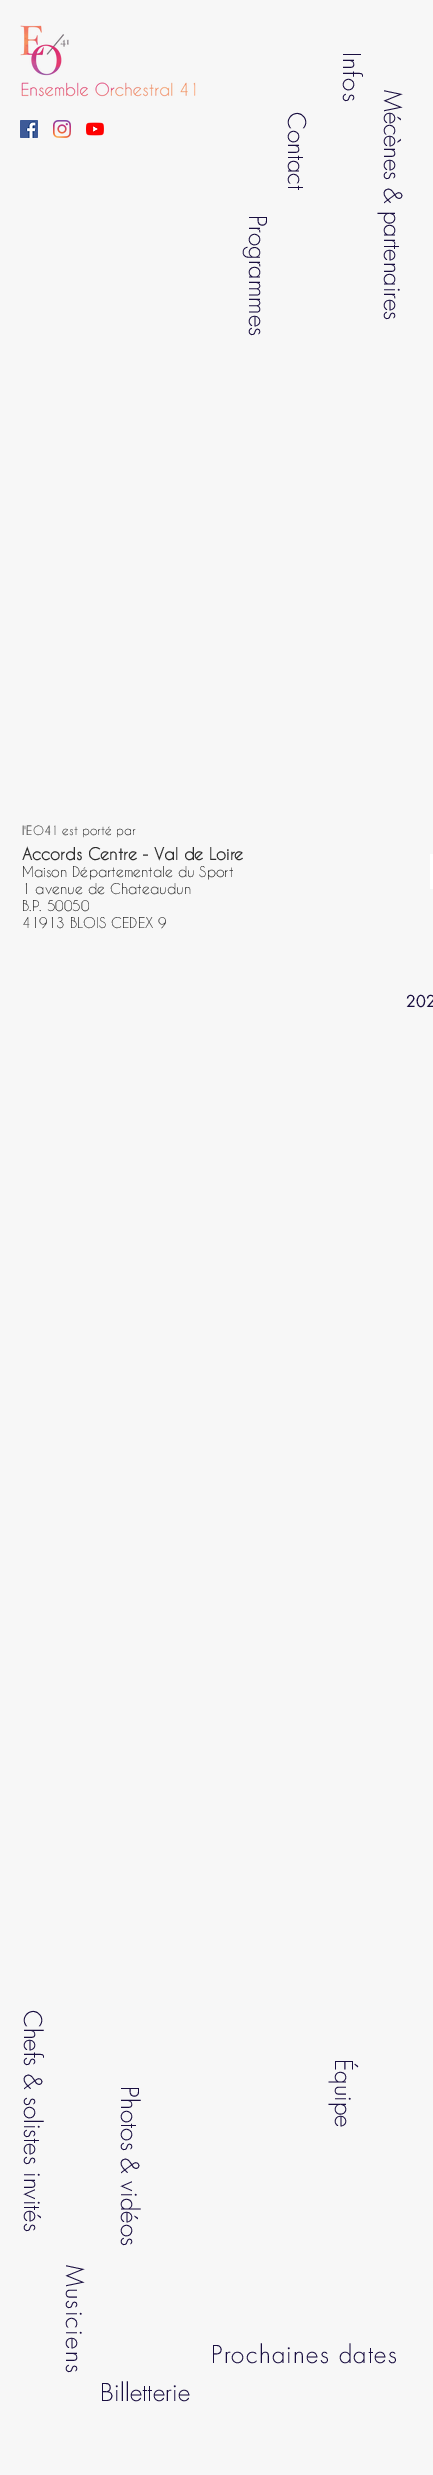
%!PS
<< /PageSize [433 2475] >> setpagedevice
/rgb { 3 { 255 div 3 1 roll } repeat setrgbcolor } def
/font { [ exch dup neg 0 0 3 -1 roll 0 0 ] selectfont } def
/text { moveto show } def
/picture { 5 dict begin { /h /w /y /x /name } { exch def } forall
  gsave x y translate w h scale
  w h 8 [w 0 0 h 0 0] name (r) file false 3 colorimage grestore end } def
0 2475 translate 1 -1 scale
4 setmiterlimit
247 247 247 rgb
0 0 433 2475 rectfill
(img_01.rgb) 20 25 49 51 picture
(img_02.rgb) 21 82 175 15 picture
(img_03.rgb) 20 120 18 18 picture
(img_04.rgb) 53 120 18 18 picture
(img_05.rgb) 86 122 18 14 picture
255 255 255 rgb
430 854 3 35 rectfill
/futura-Light 24 font
25 14 64 rgb
gsave 343 52 translate 90 rotate 0 0 moveto 1.25 0 (Infos) ashow grestore
gsave 288 112 translate 90 rotate 0 0 moveto (Contact) show grestore
gsave 384 90 translate 90 rotate 0 0 moveto (Mécènes & partenaires) show grestore
gsave 249 215 translate 90 rotate 0 0 moveto (Programmes) show grestore
/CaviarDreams-Regular 12 font
46 46 46 rgb
(l'EO41 est porté par) 22 835 text
/CaviarDreams-Bold 16 font
(Accords Centre - Val de Loire) 22 860 text
/CaviarDreams-Regular 14 font
(Maison Départementale du Sport) 22 877 text
(1 avenue de Chateaudun) 22 894 text
(B.P. 50050) 22 911 text
(41913 BLOIS CEDEX 9) 22 928 text
/futura-Regular 16 font
25 14 64 rgb
(202) 406 1007 text
/futura-Light 24 font
gsave 24 2010 translate 90 rotate 0 0 moveto (Chefs & solistes invités) show grestore
gsave 121 2086 translate 90 rotate 0 0 moveto 0.25 0 (Photos) ashow grestore
gsave 121 2158 translate 90 rotate 0 0 moveto 0.25 0 (&) ashow grestore
gsave 121 2181 translate 90 rotate 0 0 moveto 0.25 0 (vidéos) ashow grestore
gsave 66 2265 translate 90 rotate 0 0 moveto 1.25 0 (Musiciens) ashow grestore
gsave 335 2059 translate 90 rotate 0 0 moveto (Équipe) show grestore
211 2363 moveto 1.25 0 (Prochaines dates) ashow
100 2401 moveto 0.25 0 (Billetterie) ashow
showpage
